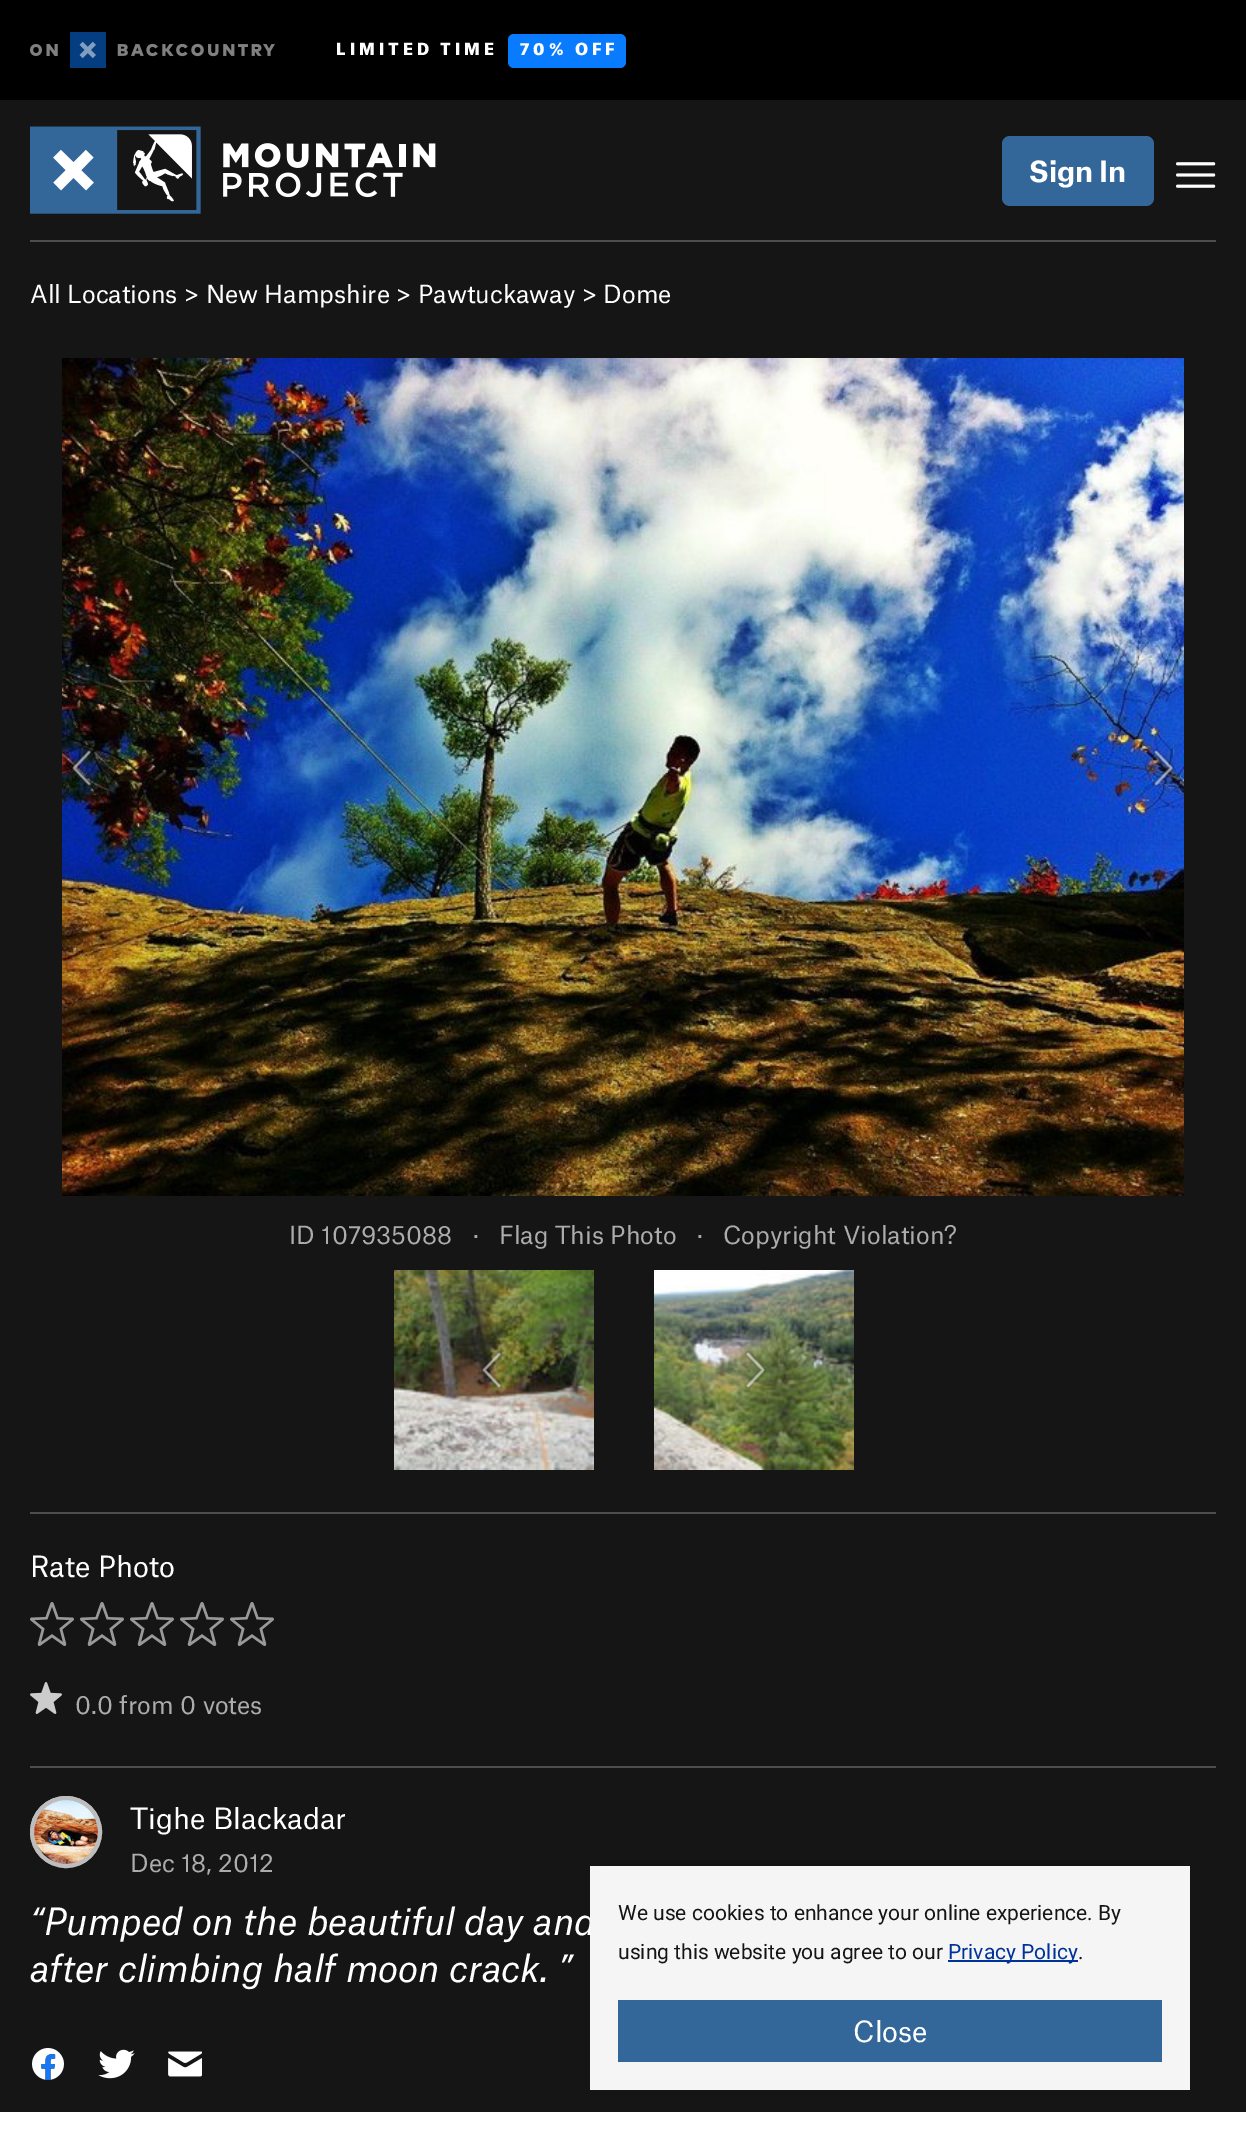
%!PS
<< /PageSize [1246 2145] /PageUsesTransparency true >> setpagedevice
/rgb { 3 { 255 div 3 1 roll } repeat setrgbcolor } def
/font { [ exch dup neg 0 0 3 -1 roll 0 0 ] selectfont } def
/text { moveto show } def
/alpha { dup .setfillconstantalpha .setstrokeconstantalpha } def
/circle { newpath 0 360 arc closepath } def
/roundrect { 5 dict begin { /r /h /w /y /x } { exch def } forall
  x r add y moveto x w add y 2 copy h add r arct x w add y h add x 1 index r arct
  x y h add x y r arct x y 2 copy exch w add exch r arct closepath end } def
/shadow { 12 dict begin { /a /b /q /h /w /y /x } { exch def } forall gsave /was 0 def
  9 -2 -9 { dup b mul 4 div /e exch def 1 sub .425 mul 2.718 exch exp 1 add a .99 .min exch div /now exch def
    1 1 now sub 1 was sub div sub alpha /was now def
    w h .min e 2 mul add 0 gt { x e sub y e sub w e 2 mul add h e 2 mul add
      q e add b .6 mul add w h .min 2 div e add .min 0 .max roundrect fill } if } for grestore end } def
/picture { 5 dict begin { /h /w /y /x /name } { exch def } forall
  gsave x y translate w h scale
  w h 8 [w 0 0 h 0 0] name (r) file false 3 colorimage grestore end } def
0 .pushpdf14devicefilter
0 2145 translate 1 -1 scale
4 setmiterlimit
255 255 255 rgb
0 0 1246 2145 rectfill
21 21 21 rgb
0 100 1246 2012 rectfill
0 0 0 rgb
0 0 1246 100 rectfill
(img_01.rgb) 30 32 245 36 picture
8 123 255 rgb
508 34 118 34 6 roundrect fill
(img_02.rgb) 30 126 406 88 picture
51 103 153 rgb
1002 136 152 70 8 roundrect fill
(img_03.rgb) 1176 162 40 26 picture
78 77 73 rgb
30 240 1186 2 rectfill
(img_04.rgb) 62 358 1122 838 picture
(img_05.rgb) 71 750 21 36 picture
(img_06.rgb) 1152 748 23 40 picture
(img_07.rgb) 394 1270 200 200 picture
(img_08.rgb) 481 1350 21 40 picture
(img_09.rgb) 654 1270 200 200 picture
(img_10.rgb) 744 1350 22 40 picture
30 1512 1186 2 rectfill
(img_11.rgb) 30 1602 44 44 picture
(img_11.rgb) 80 1602 44 44 picture
(img_11.rgb) 130 1602 44 44 picture
(img_11.rgb) 180 1602 44 44 picture
(img_12.rgb) 230 1602 44 44 picture
(img_13.rgb) 30 1682 32 32 picture
30 1766 1186 2 rectfill
(img_14.rgb) 30 1796 72 72 picture
189 189 189 rgb
4 setlinewidth
66 1832 34 circle stroke
(img_15.rgb) 32 2048 32 32 picture
(img_16.rgb) 98 2049 37 30 picture
(img_17.rgb) 168 2051 34 26 picture
0 0 0 rgb
600 1866 580 204 0 10 0.25 shadow
/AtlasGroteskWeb-Black 16 font
255 255 255 rgb
336 55 moveto 4 0 (LIMITED TIME) ashow
520 55 moveto 4 0 (70% OFF) ashow
/AtlasGroteskWeb-Bold 28 font
(Sign In) 1029 182 text
/AtlasGroteskWeb-Regular 24 font
(All Locations > New Hampshire > Pawtuckaway > Dome) 30 303 text
172 172 172 rgb
(ID 107935088) 289 1244 text
(·) 473 1244 text
(Flag This Photo) 499 1244 text
(·) 697 1244 text
(Copyright Violation?) 723 1244 text
/AtlasGroteskWeb-Regular 28 font
255 255 255 rgb
(Rate Photo) 30 1577 text
/AtlasGroteskWeb-Regular 24 font
172 172 172 rgb
(0.0 from 0 votes) 75 1714 text
/AtlasGroteskWeb-Regular 28 font
255 255 255 rgb
(Tighe Blackadar) 130 1829 text
/AtlasGroteskWeb-Regular 24 font
172 172 172 rgb
(Dec 18, 2012) 130 1872 text
/AtlasGroteskWeb-Italic 36 font
255 255 255 rgb
(“Pumped on the beautiful day and) 30 1935 text
(after climbing half moon crack. ”) 30 1982 text
245 245 245 rgb
590 1866 600 224 rectfill
/Roboto-Regular 21 font
21 21 21 rgb
(We use cookies to enhance your online experience. By) 618 1920 text
(using this website you agree to our) 618 1959 text
0 51 153 rgb
948 1960 130 2 rectfill
(Privacy Policy) 948 1959 text
21 21 21 rgb
(.) 1078 1959 text
51 103 153 rgb
618 2000 544 62 rectfill
/AtlasGroteskWeb-Regular 28 font
255 255 255 rgb
(Close) 853 2042 text
.poppdf14devicefilter showpage
